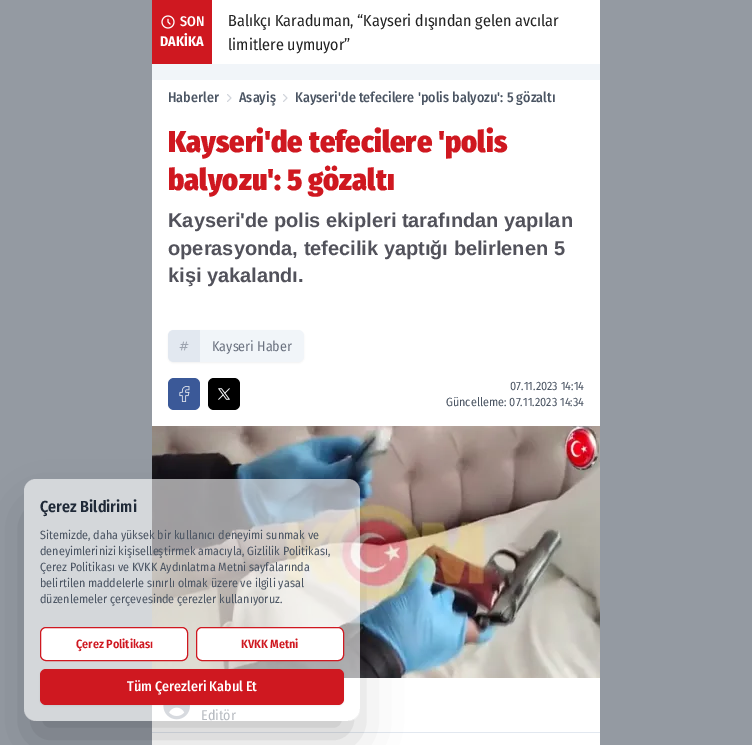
%!PS
<< /PageSize [752 745] /PageUsesTransparency true >> setpagedevice
/rgb { 3 { 255 div 3 1 roll } repeat setrgbcolor } def
/font { [ exch dup neg 0 0 3 -1 roll 0 0 ] selectfont } def
/text { moveto show } def
/alpha { dup .setfillconstantalpha .setstrokeconstantalpha } def
/roundrect { 5 dict begin { /r /h /w /y /x } { exch def } forall
  x r add y moveto x w add y 2 copy h add r arct x w add y h add x 1 index r arct
  x y h add x y r arct x y 2 copy exch w add exch r arct closepath end } def
/shadow { 12 dict begin { /a /b /q /h /w /y /x } { exch def } forall gsave /was 0 def
  9 -2 -9 { dup b mul 4 div /e exch def 1 sub .425 mul 2.718 exch exp 1 add a .99 .min exch div /now exch def
    1 1 now sub 1 was sub div sub alpha /was now def
    w h .min e 2 mul add 0 gt { x e sub y e sub w e 2 mul add h e 2 mul add
      q e add b .6 mul add w h .min 2 div e add .min 0 .max roundrect fill } if } for grestore end } def
/picture { 5 dict begin { /h /w /y /x /name } { exch def } forall
  gsave x y translate w h scale
  w h 8 [w 0 0 h 0 0] name (r) file false 3 colorimage grestore end } def
0 .pushpdf14devicefilter
0 745 translate 1 -1 scale
4 setmiterlimit
148 154 162 rgb
0 0 752 745 rectfill
241 245 249 rgb
152 64 448 16 rectfill
255 255 255 rgb
212 0 388 64 rectfill
207 24 32 rgb
152 0 60 64 rectfill
(img_01.rgb) 161 15 14 14 picture
255 255 255 rgb
152 80 448 665 rectfill
0 0 0 rgb
168 331 136 32 6 1 0.05 shadow
241 245 249 rgb
168 330 136 32 6 roundrect fill
226 232 240 rgb
174 330 moveto 26 0 rlineto 0 32 rlineto -26 0 rlineto -3.5 0 -6 -2.5 -6 -6 rcurveto 0 -20 rlineto 0 -3.5 2.5 -6 6 -6 rcurveto closepath fill
(img_02.rgb) 179 341 10 10 picture
59 89 152 rgb
168 378 32 32 6 roundrect fill
(img_03.rgb) 179 386 11 16 picture
0 0 0 rgb
208 378 32 32 6 roundrect fill
(img_04.rgb) 218 388 12 12 picture
(img_05.rgb) 152 426 448 252 picture
226 232 240 rgb
152 732 448 1 rectfill
(img_06.rgb) 163 705 27 15 picture
gsave
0 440 moveto 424 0 rlineto 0 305 rlineto -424 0 rlineto closepath 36 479 moveto 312 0 rlineto 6.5 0 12 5.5 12 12 rcurveto 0 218 rlineto 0 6.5 -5.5 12 -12 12 rcurveto -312 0 rlineto -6.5 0 -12 -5.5 -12 -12 rcurveto 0 -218 rlineto 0 -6.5 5.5 -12 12 -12 rcurveto closepath eoclip newpath
0 0 0 rgb
36 516 312 218 0 25 0.25 shadow
grestore
/FiraSansCondensed-Medium 14 font
255 255 255 rgb
(SON) 180 26 text
/FiraSansCondensed-Bold 14 font
(DAKİKA) 160 46 text
/FiraSansCondensed-Regular 16 font
34 34 34 rgb
(Balıkçı Karaduman, “Kayseri dışından gelen avcılar) 228 26 text
(limitlere uymuyor”) 228 50 text
/FiraSansCondensed-Medium 14 font
75 85 99 rgb
(Haberler) 168 102 text
(Asayiş) 239 102 text
209 213 219 rgb
1 setlinecap
1 setlinejoin
227.5 94.5 moveto 3.5 3.5 rlineto -3.5 3.5 rlineto 283.5 94.5 moveto 3.5 3.5 rlineto -3.5 3.5 rlineto stroke
75 85 99 rgb
(Kayseri'de tefecilere 'polis balyozu': 5 gözaltı) 295 102 text
/FiraSansCondensed-Black 30 font
207 24 32 rgb
(Kayseri'de tefecilere 'polis) 168 152 text
(balyozu': 5 gözaltı) 168 190 text
/LiberationSans-Bold 20 font
82 82 91 rgb
(Kayseri'de polis ekipleri tarafından yapılan) 168 227 text
(operasyonda, tefecilik yaptığı belirlenen 5) 168 255 text
(kişi yakalandı.) 168 282 text
/FiraSansCondensed-Regular 14 font
107 114 128 rgb
(Kayseri Haber) 212 351 text
/FiraSansCondensed-Regular 12 font
75 85 99 rgb
(07.11.2023 14:14) 510 390 text
(Güncelleme: 07.11.2023 14:34) 446 406 text
/FiraSansCondensed-Regular 14 font
(Editör) 201 720 text
0.6 alpha
255 255 255 rgb
24 479 336 242 12 roundrect fill
/FiraSansCondensed-SemiBold 16 font
1 alpha
31 41 55 rgb
(Çerez Bildirimi) 40 512 text
/FiraSansCondensed-Regular 12 font
75 85 99 rgb
(Sitemizde, daha yüksek bir kullanıcı deneyimi sunmak ve) 40 539 text
(deneyimlerinizi kişiselleştirmek amacıyla, Gizlilik Politikası,) 40 555 text
(Çerez Politikası ve KVKK Aydınlatma Metni sayfalarında) 40 571 text
(belirtilen maddelerle sınırlı olmak üzere ve ilgili yasal) 40 587 text
(düzenlemeler çerçevesinde çerezler kullanıyoruz.) 40 603 text
255 255 255 rgb
40.5 627.5 147 33 5.5 roundrect gsave fill grestore
207 24 32 rgb
0 setlinecap
0 setlinejoin
stroke
/FiraSansCondensed-SemiBold 12 font
(Çerez Politikası) 76 648 text
255 255 255 rgb
196.5 627.5 147 33 5.5 roundrect gsave fill grestore
207 24 32 rgb
stroke
(KVKK Metni) 241 648 text
0 0 0 rgb
40 670 304 36 6 1 0.05 shadow
207 24 32 rgb
40 669 304 36 6 roundrect fill
/FiraSansCondensed-Medium 14 font
255 255 255 rgb
(Tüm Çerezleri Kabul Et) 127 691 text
.poppdf14devicefilter showpage
